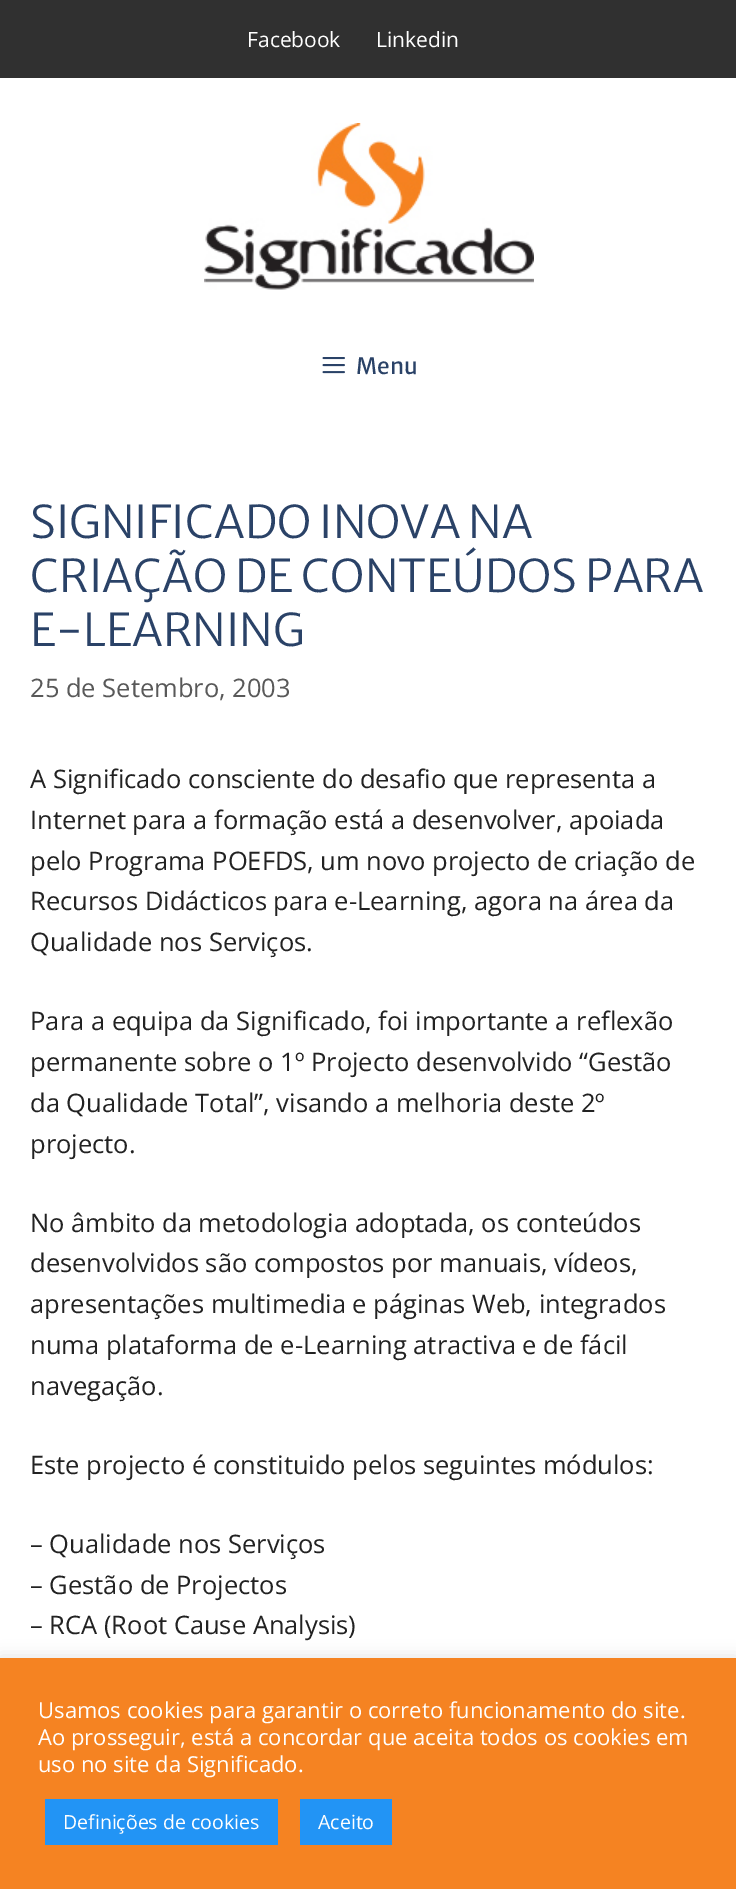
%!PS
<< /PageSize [736 1889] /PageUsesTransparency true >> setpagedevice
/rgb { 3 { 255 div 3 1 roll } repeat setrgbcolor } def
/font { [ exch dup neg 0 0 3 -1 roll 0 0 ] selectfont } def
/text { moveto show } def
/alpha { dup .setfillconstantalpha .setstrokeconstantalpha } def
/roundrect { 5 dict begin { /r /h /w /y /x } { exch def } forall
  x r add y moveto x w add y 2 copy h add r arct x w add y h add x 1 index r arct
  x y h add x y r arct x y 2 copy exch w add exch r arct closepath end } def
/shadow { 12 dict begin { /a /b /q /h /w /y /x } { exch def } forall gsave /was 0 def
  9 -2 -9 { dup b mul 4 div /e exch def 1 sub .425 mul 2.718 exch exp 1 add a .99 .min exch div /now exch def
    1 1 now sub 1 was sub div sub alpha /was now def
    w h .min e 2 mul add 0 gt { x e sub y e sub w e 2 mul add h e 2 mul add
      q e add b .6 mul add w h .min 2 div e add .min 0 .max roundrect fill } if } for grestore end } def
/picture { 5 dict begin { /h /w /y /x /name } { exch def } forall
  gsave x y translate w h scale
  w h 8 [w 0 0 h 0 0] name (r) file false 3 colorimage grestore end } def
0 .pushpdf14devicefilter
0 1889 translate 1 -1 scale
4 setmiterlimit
255 255 255 rgb
0 0 736 1889 rectfill
48 48 48 rgb
0 0 736 78 rectfill
(img_01.rgb) 204 123 330 167 picture
(img_02.rgb) 322 357 23 17 picture
172 171 171 rgb
0 1656 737 233 0 7.5 0.3 shadow
245 131 34 rgb
0 1658 736 231 rectfill
34 148 245 rgb
45 1799 233 46 rectfill
300 1799 92 46 rectfill
/OpenSans-Regular 21 font
255 255 255 rgb
(Facebook) 247 47 text
(Linkedin) 376 47 text
/MerriweatherSans-Regular 22.5 font
42 66 103 rgb
(Menu) 356 374 text
/MerriweatherSans-Light 45 font
(SIGNIFICADO INOVA NA) 30 538 text
(CRIAÇÃO DE CONTEÚDOS PARA) 30 592 text
(E-LEARNING) 30 646 text
/OpenSans-Regular 25.5 font
89 89 89 rgb
(25 de Setembro, 2003) 30 697 text
34 34 34 rgb
(A Significado consciente do desafio que representa a) 30 788 text
(Internet para a formação está a desenvolver, apoiada) 30 829 text
(pelo Programa POEFDS, um novo projecto de criação de) 30 870 text
(Recursos Didácticos para e-Learning, agora na área da) 30 910 text
(Qualidade nos Serviços.) 30 951 text
(Para a equipa da Significado, foi importante a reflexão) 30 1030 text
(permanente sobre o 1º Projecto desenvolvido “Gestão) 30 1071 text
(da Qualidade Total”, visando a melhoria deste 2º) 30 1112 text
(projecto.) 30 1153 text
(No âmbito da metodologia adoptada, os conteúdos) 30 1232 text
(desenvolvidos são compostos por manuais, vídeos,) 30 1272 text
(apresentações multimedia e páginas Web, integrados) 30 1313 text
(numa plataforma de e-Learning atractiva e de fácil) 30 1354 text
(navegação.) 30 1395 text
(Este projecto é constituido pelos seguintes módulos:) 30 1474 text
(– Qualidade nos Serviços) 30 1553 text
(– Gestão de Projectos) 30 1594 text
(– RCA \(Root Cause Analysis\)) 30 1634 text
/OpenSans-Regular 22 font
255 255 255 rgb
(Usamos cookies para garantir o correto funcionamento do site.) 38 1718 text
(Ao prosseguir, está a concordar que aceita todos os cookies em) 38 1745 text
(uso no site da Significado.) 38 1772 text
/OpenSans-Regular 19.5 font
(Definições de cookies) 63 1829 text
(Aceito) 318 1829 text
.poppdf14devicefilter showpage
